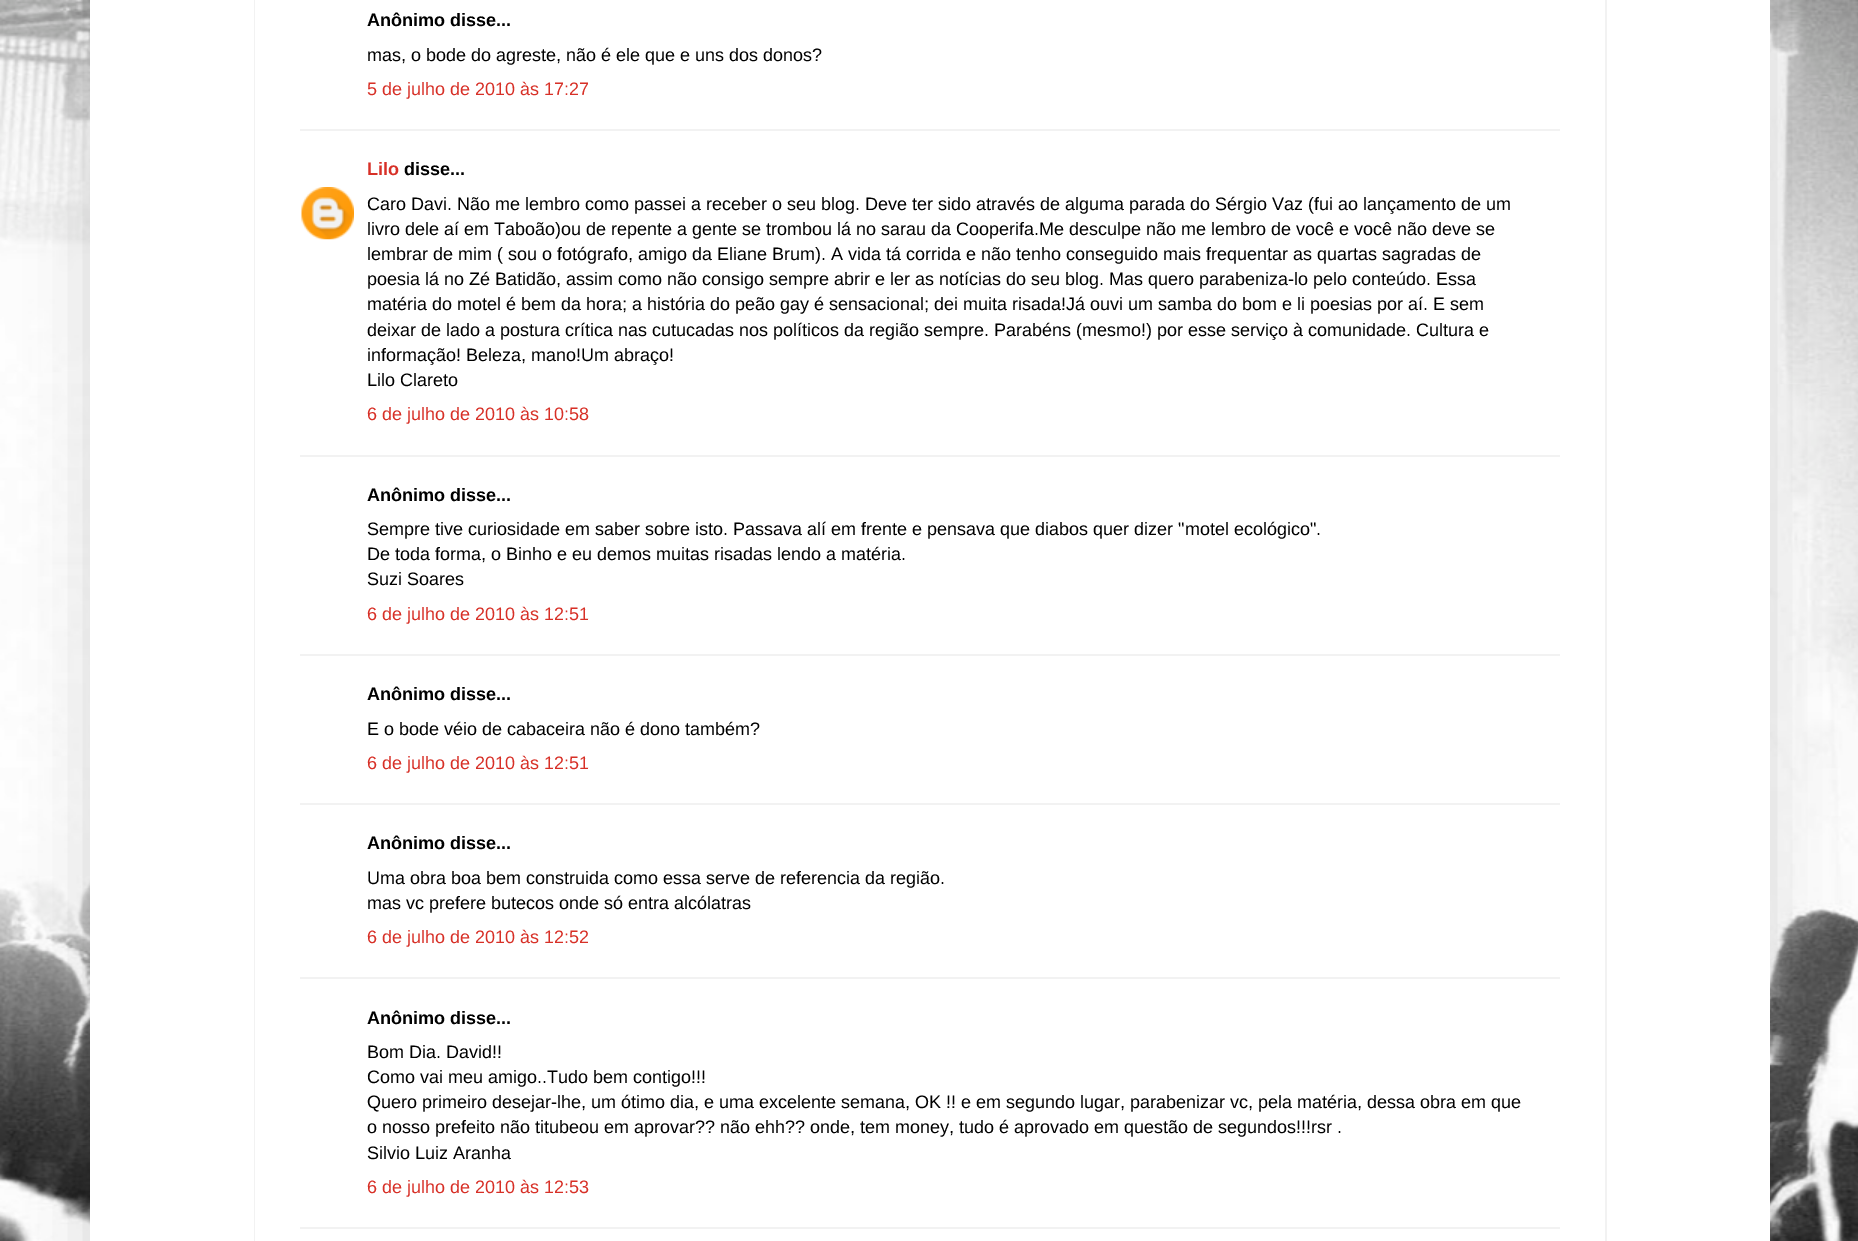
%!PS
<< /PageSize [1858 1241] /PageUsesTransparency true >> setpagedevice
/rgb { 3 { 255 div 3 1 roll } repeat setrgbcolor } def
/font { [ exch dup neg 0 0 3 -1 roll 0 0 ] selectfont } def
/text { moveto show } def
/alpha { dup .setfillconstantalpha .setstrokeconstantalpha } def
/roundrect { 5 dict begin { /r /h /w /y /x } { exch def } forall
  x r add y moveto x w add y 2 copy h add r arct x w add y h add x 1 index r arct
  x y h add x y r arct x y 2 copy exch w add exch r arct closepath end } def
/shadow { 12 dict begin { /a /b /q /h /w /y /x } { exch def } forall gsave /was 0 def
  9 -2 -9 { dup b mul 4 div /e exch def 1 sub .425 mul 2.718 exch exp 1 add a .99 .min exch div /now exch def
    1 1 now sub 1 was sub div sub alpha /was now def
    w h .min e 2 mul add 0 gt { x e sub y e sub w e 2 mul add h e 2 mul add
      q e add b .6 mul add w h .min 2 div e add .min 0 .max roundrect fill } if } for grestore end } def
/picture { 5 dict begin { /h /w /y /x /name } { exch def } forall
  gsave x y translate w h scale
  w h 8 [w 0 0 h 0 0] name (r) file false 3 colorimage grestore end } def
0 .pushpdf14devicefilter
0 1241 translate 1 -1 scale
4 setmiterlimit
255 255 255 rgb
0 0 1858 1241 rectfill
(img_01.rgb) 0 0 1858 1241 picture
0 0 0 rgb
90 -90 1680 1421 0 30 0.15 shadow
255 255 255 rgb
90 0 1680 1241 rectfill
242 242 242 rgb
254 0 1 1241 rectfill
300 129 1260 2 rectfill
(img_02.rgb) 301 187 53 53 picture
300 455 1260 2 rectfill
300 654 1260 2 rectfill
300 803 1260 2 rectfill
300 977 1260 2 rectfill
300 1227 1260 2 rectfill
1605 0 2 1241 rectfill
/LiberationSans-Bold 18 font
0 0 0 rgb
(Anônimo disse...) 367 26 text
/LiberationSans-Regular 18 font
(mas, o bode do agreste, não é ele que e uns dos donos?) 367 61 text
215 48 39 rgb
(5 de julho de 2010 às 17:27) 367 95 text
/LiberationSans-Bold 18 font
(Lilo) 367 175 text
0 0 0 rgb
(disse...) 404 175 text
/LiberationSans-Regular 18 font
(Caro Davi. Não me lembro como passei a receber o seu blog. Deve ter sido através de alguma parada do Sérgio Vaz \(fui ao lançamento de um) 367 210 text
(livro dele aí em Taboão\)ou de repente a gente se trombou lá no sarau da Cooperifa.Me desculpe não me lembro de você e você não deve se) 367 235 text
(lembrar de mim \( sou o fotógrafo, amigo da Eliane Brum\). A vida tá corrida e não tenho conseguido mais frequentar as quartas sagradas de) 367 260 text
(poesia lá no Zé Batidão, assim como não consigo sempre abrir e ler as notícias do seu blog. Mas quero parabeniza-lo pelo conteúdo. Essa) 367 285 text
(matéria do motel é bem da hora; a história do peão gay é sensacional; dei muita risada!Já ouvi um samba do bom e li poesias por aí. E sem) 367 310 text
(deixar de lado a postura crítica nas cutucadas nos políticos da região sempre. Parabéns \(mesmo!\) por esse serviço à comunidade. Cultura e) 367 336 text
(informação! Beleza, mano!Um abraço!) 367 361 text
(Lilo Clareto) 367 386 text
215 48 39 rgb
(6 de julho de 2010 às 10:58) 367 420 text
/LiberationSans-Bold 18 font
0 0 0 rgb
(Anônimo disse...) 367 501 text
/LiberationSans-Regular 18 font
(Sempre tive curiosidade em saber sobre isto. Passava alí em frente e pensava que diabos quer dizer "motel ecológico".) 367 535 text
(De toda forma, o Binho e eu demos muitas risadas lendo a matéria.) 367 560 text
(Suzi Soares) 367 585 text
215 48 39 rgb
(6 de julho de 2010 às 12:51) 367 620 text
/LiberationSans-Bold 18 font
0 0 0 rgb
(Anônimo disse...) 367 700 text
/LiberationSans-Regular 18 font
(E o bode véio de cabaceira não é dono também?) 367 735 text
215 48 39 rgb
(6 de julho de 2010 às 12:51) 367 769 text
/LiberationSans-Bold 18 font
0 0 0 rgb
(Anônimo disse...) 367 849 text
/LiberationSans-Regular 18 font
(Uma obra boa bem construida como essa serve de referencia da região.) 367 884 text
(mas vc prefere butecos onde só entra alcólatras) 367 909 text
215 48 39 rgb
(6 de julho de 2010 às 12:52) 367 943 text
/LiberationSans-Bold 18 font
0 0 0 rgb
(Anônimo disse...) 367 1024 text
/LiberationSans-Regular 18 font
(Bom Dia. David!!) 367 1058 text
(Como vai meu amigo..Tudo bem contigo!!!) 367 1083 text
(Quero primeiro desejar-lhe, um ótimo dia, e uma excelente semana, OK !! e em segundo lugar, parabenizar vc, pela matéria, dessa obra em que) 367 1108 text
(o nosso prefeito não titubeou em aprovar?? não ehh?? onde, tem money, tudo é aprovado em questão de segundos!!!rsr .) 367 1133 text
(Silvio Luiz Aranha) 367 1159 text
215 48 39 rgb
(6 de julho de 2010 às 12:53) 367 1193 text
.poppdf14devicefilter showpage
